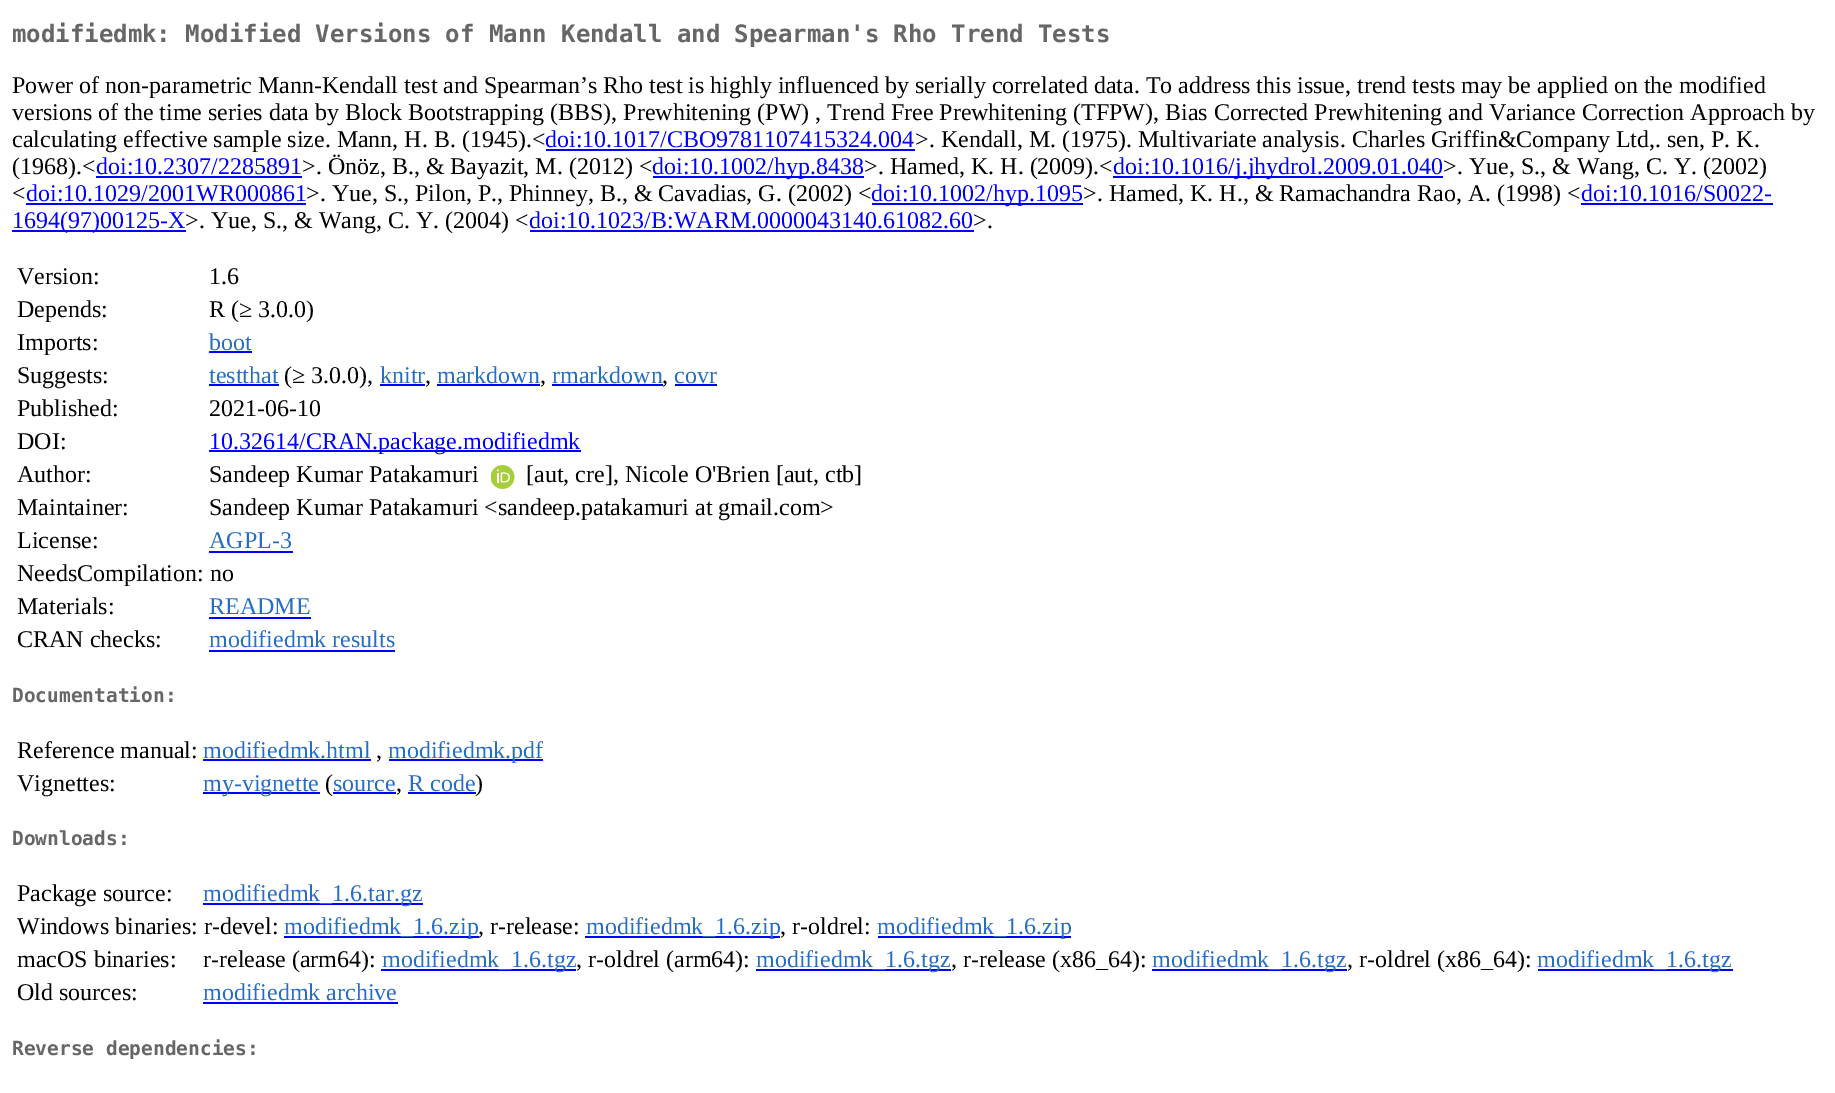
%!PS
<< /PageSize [1835 1093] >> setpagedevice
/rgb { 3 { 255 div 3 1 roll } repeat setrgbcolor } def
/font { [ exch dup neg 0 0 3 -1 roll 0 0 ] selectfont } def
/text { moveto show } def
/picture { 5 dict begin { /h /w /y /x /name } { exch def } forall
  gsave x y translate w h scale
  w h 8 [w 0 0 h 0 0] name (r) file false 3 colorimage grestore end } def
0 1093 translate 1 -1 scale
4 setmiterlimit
255 255 255 rgb
0 0 1835 1093 rectfill
0 0 255 rgb
546 149 369 2 rectfill
96 176 206 2 rectfill
653 176 211 2 rectfill
1113 176 330 2 rectfill
26 203 280 2 rectfill
872 203 211 2 rectfill
1581 203 192 2 rectfill
12 230 174 2 rectfill
530 230 444 2 rectfill
209 351 43 2 rectfill
209 384 70 2 rectfill
380 384 45 2 rectfill
437 384 103 2 rectfill
552 384 111 2 rectfill
675 384 42 2 rectfill
209 450 372 2 rectfill
(img_01.rgb) 491 465 24 24 picture
209 551 84 2 rectfill
209 617 102 2 rectfill
209 650 186 2 rectfill
203 759 168 2 rectfill
389 759 154 2 rectfill
203 792 117 2 rectfill
333 792 63 2 rectfill
408 792 68 2 rectfill
203 903 220 2 rectfill
284 936 195 2 rectfill
585 936 195 2 rectfill
878 936 193 2 rectfill
381 969 195 2 rectfill
756 969 195 2 rectfill
1152 969 195 2 rectfill
1538 969 195 2 rectfill
203 1002 195 2 rectfill
/DejaVuSansMono-Bold 24 font
102 102 102 rgb
(modifiedmk: Modified Versions of Mann Kendall and Spearman's Rho Trend Tests) 12 42 text
/LiberationSerif-Regular 24 font
0 0 0 rgb
(Power of non-parametric Mann-Kendall test and Spearman’s Rho test is highly influenced by serially correlated data. To address this issue, trend tests may be applied on the modified) 12 93 text
(versions of the time series data by Block Bootstrapping \(BBS\), Prewhitening \(PW\) , Trend Free Prewhitening \(TFPW\), Bias Corrected Prewhitening and Variance Correction Approach by) 12 120 text
(calculating effective sample size. Mann, H. B. \(1945\).<) 12 147 text
0 0 255 rgb
(doi:10.1017/CBO9781107415324.004) 545 147 text
0 0 0 rgb
(>. Kendall, M. \(1975\). Multivariate analysis. Charles Griffin&Company Ltd,. sen, P. K.) 915 147 text
(\(1968\).<) 12 174 text
0 0 255 rgb
(doi:10.2307/2285891) 96 174 text
0 0 0 rgb
(>. Önöz, B., & Bayazit, M. \(2012\) <) 302 174 text
0 0 255 rgb
(doi:10.1002/hyp.8438) 652 174 text
0 0 0 rgb
(>. Hamed, K. H. \(2009\).<) 864 174 text
0 0 255 rgb
(doi:10.1016/j.jhydrol.2009.01.040) 1113 174 text
0 0 0 rgb
(>. Yue, S., & Wang, C. Y. \(2002\)) 1443 174 text
(<) 12 201 text
0 0 255 rgb
(doi:10.1029/2001WR000861) 26 201 text
0 0 0 rgb
(>. Yue, S., Pilon, P., Phinney, B., & Cavadias, G. \(2002\) <) 306 201 text
0 0 255 rgb
(doi:10.1002/hyp.1095) 871 201 text
0 0 0 rgb
(>. Hamed, K. H., & Ramachandra Rao, A. \(1998\) <) 1083 201 text
0 0 255 rgb
(doi:10.1016/S0022-) 1581 201 text
(1694\(97\)00125-X) 12 228 text
0 0 0 rgb
(>. Yue, S., & Wang, C. Y. \(2004\) <) 185 228 text
0 0 255 rgb
(doi:10.1023/B:WARM.0000043140.61082.60) 529 228 text
0 0 0 rgb
(>.) 973 228 text
(Version:) 17 284 text
(1.6) 209 284 text
(Depends:) 17 317 text
(R \(≥ 3.0.0\)) 209 317 text
(Imports:) 17 350 text
39 109 195 rgb
(boot) 209 350 text
0 0 0 rgb
(Suggests:) 17 383 text
39 109 195 rgb
(testthat) 209 383 text
0 0 0 rgb
(\(≥ 3.0.0\),) 284 383 text
39 109 195 rgb
(knitr) 380 383 text
0 0 0 rgb
(,) 425 383 text
39 109 195 rgb
(markdown) 437 383 text
0 0 0 rgb
(,) 540 383 text
39 109 195 rgb
(rmarkdown) 552 383 text
0 0 0 rgb
(,) 662 383 text
39 109 195 rgb
(covr) 674 383 text
0 0 0 rgb
(Published:) 17 416 text
(2021-06-10) 209 416 text
(DOI:) 17 449 text
0 0 255 rgb
(10.32614/CRAN.package.modifiedmk) 209 449 text
0 0 0 rgb
(Author:) 17 482 text
(Sandeep Kumar Patakamuri) 209 482 text
([aut, cre], Nicole O'Brien [aut, ctb]) 526 482 text
(Maintainer:) 17 515 text
(Sandeep Kumar Patakamuri <sandeep.patakamuri at gmail.com>) 209 515 text
(License:) 17 548 text
39 109 195 rgb
(AGPL-3) 209 548 text
0 0 0 rgb
(NeedsCompilation: no) 17 581 text
(Materials:) 17 614 text
39 109 195 rgb
(README) 209 614 text
0 0 0 rgb
(CRAN checks:) 17 647 text
39 109 195 rgb
(modifiedmk results) 209 647 text
/DejaVuSansMono-Bold 19.5 font
102 102 102 rgb
(Documentation:) 12 702 text
/LiberationSerif-Regular 24 font
0 0 0 rgb
(Reference manual:) 17 758 text
39 109 195 rgb
(modifiedmk.html) 203 758 text
0 0 0 rgb
(,) 376 758 text
39 109 195 rgb
(modifiedmk.pdf) 388 758 text
0 0 0 rgb
(Vignettes:) 17 791 text
39 109 195 rgb
(my-vignette) 203 791 text
0 0 0 rgb
(\() 325 791 text
39 109 195 rgb
(source) 333 791 text
0 0 0 rgb
(,) 396 791 text
39 109 195 rgb
(R code) 408 791 text
0 0 0 rgb
(\)) 475 791 text
/DejaVuSansMono-Bold 19.5 font
102 102 102 rgb
(Downloads:) 12 845 text
/LiberationSerif-Regular 24 font
0 0 0 rgb
(Package source:) 17 901 text
39 109 195 rgb
(modifiedmk_1.6.tar.gz) 203 901 text
0 0 0 rgb
(Windows binaries: r-devel:) 17 934 text
39 109 195 rgb
(modifiedmk_1.6.zip) 284 934 text
0 0 0 rgb
(, r-release:) 478 934 text
39 109 195 rgb
(modifiedmk_1.6.zip) 586 934 text
0 0 0 rgb
(, r-oldrel:) 780 934 text
39 109 195 rgb
(modifiedmk_1.6.zip) 877 934 text
0 0 0 rgb
(macOS binaries:) 17 967 text
(r-release \(arm64\):) 203 967 text
39 109 195 rgb
(modifiedmk_1.6.tgz) 382 967 text
0 0 0 rgb
(, r-oldrel \(arm64\):) 576 967 text
39 109 195 rgb
(modifiedmk_1.6.tgz) 756 967 text
0 0 0 rgb
(, r-release \(x86_64\):) 951 967 text
39 109 195 rgb
(modifiedmk_1.6.tgz) 1152 967 text
0 0 0 rgb
(, r-oldrel \(x86_64\):) 1347 967 text
39 109 195 rgb
(modifiedmk_1.6.tgz) 1537 967 text
0 0 0 rgb
(Old sources:) 17 1000 text
39 109 195 rgb
(modifiedmk archive) 203 1000 text
/DejaVuSansMono-Bold 19.5 font
102 102 102 rgb
(Reverse dependencies:) 12 1055 text
showpage
